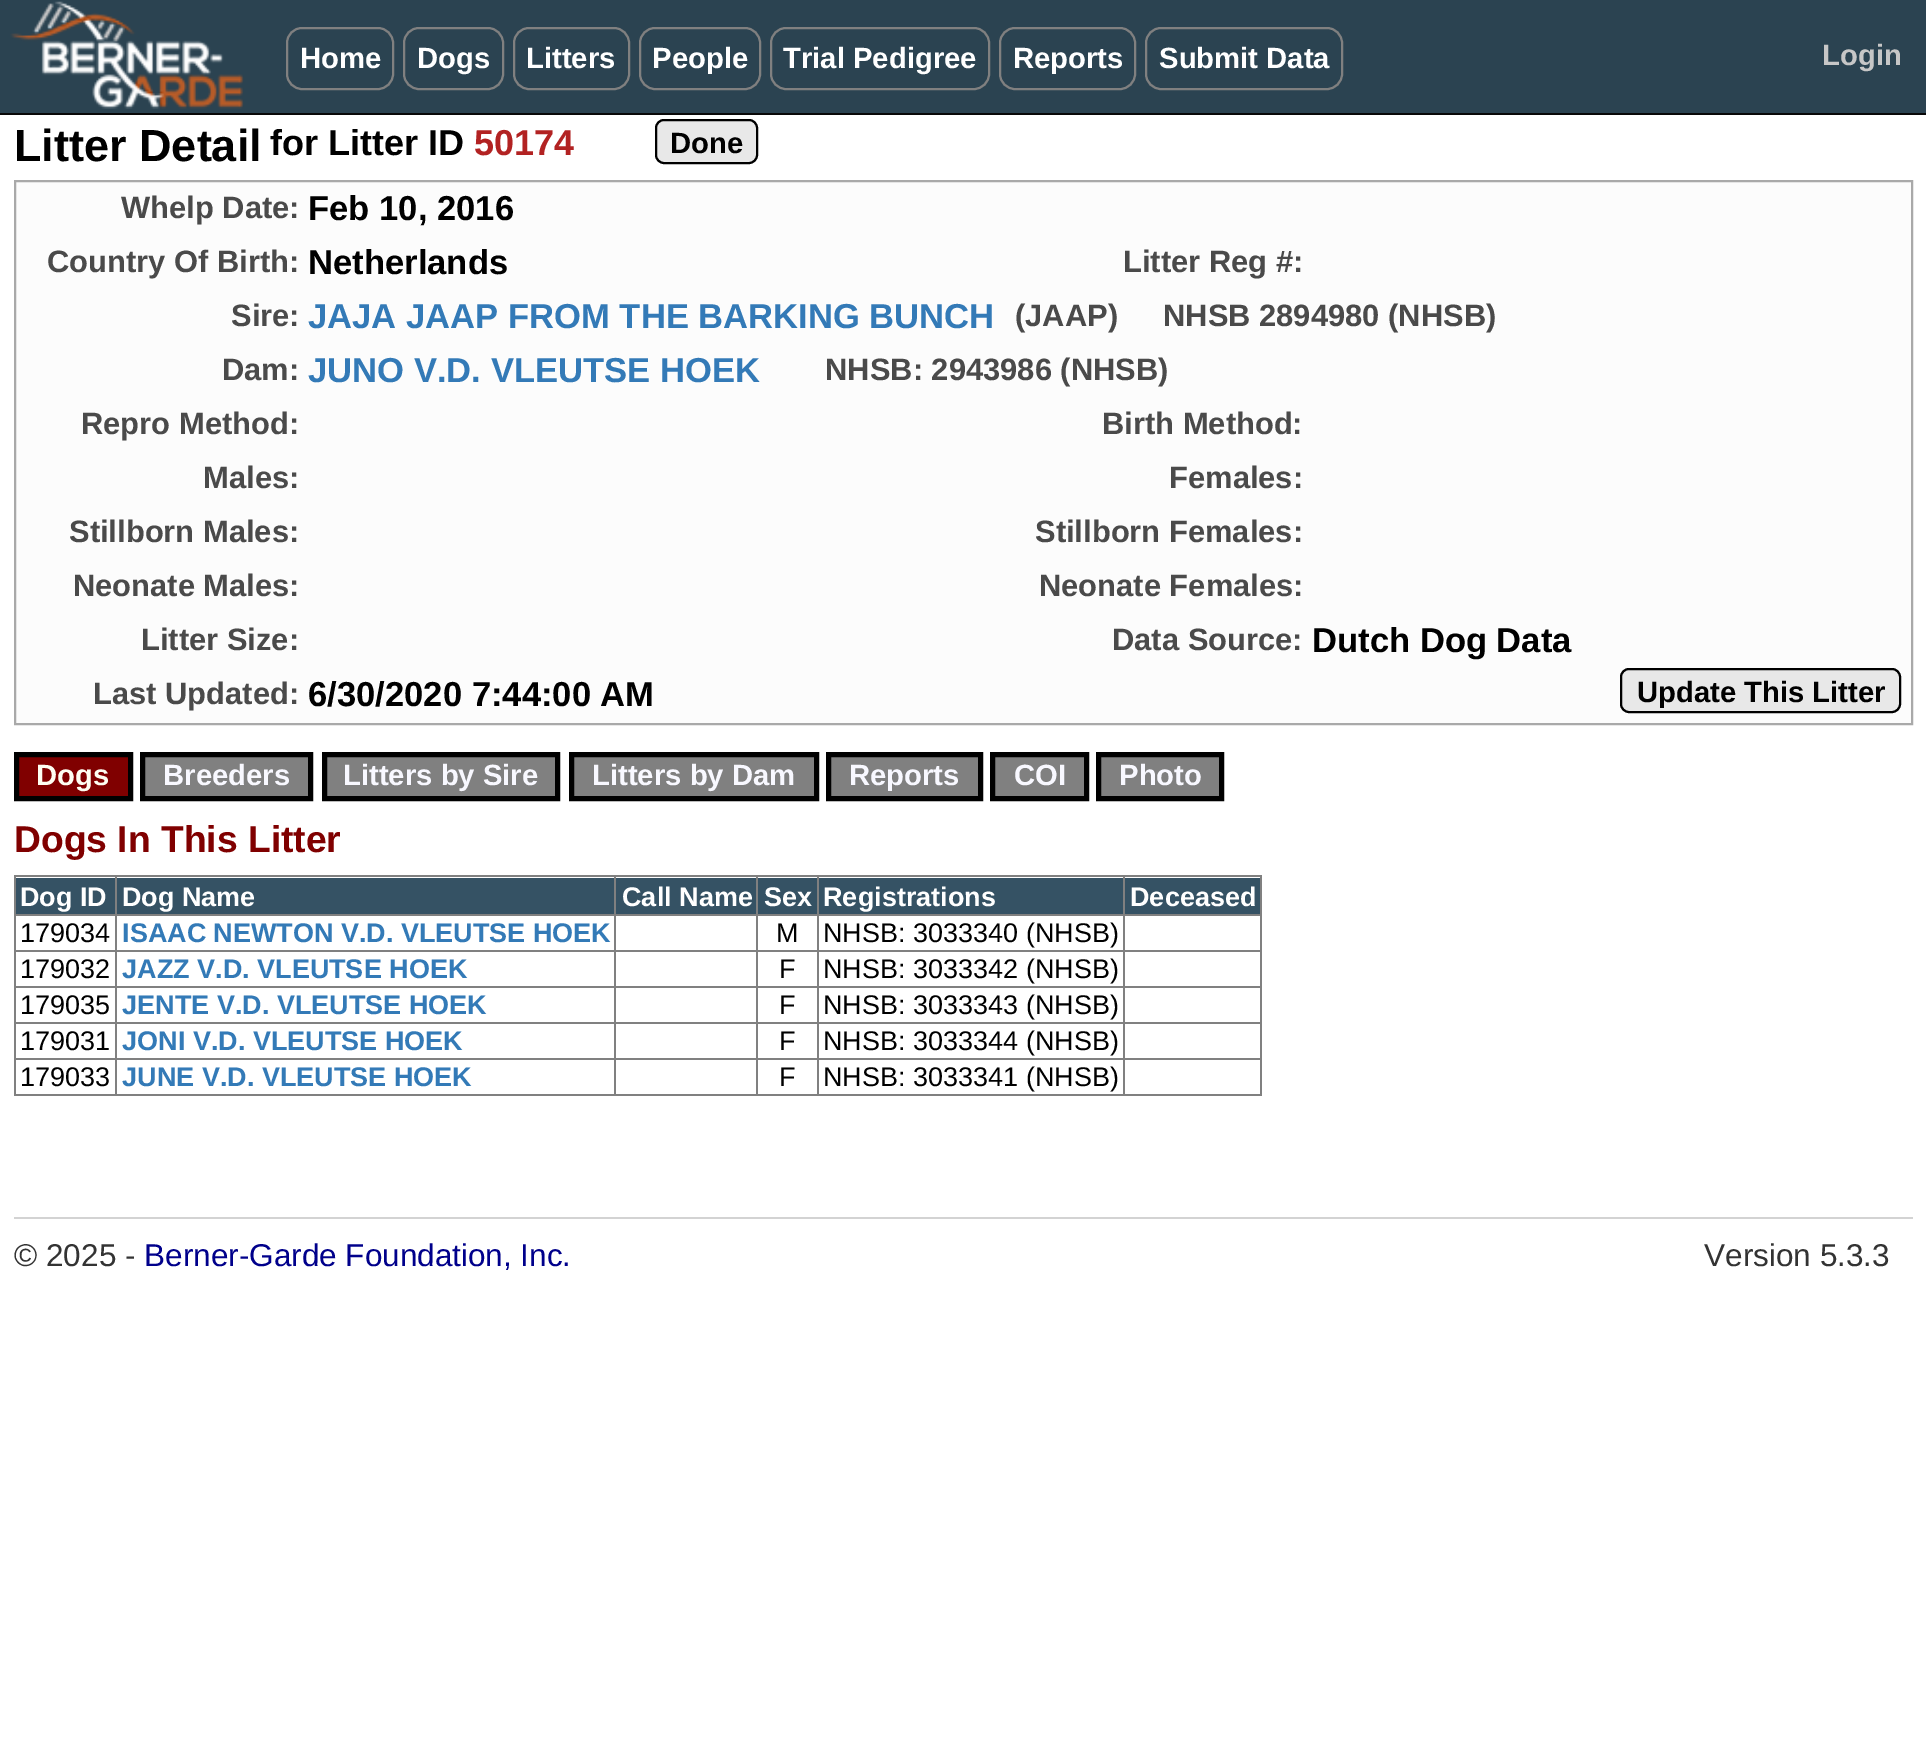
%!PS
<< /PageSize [1926 1746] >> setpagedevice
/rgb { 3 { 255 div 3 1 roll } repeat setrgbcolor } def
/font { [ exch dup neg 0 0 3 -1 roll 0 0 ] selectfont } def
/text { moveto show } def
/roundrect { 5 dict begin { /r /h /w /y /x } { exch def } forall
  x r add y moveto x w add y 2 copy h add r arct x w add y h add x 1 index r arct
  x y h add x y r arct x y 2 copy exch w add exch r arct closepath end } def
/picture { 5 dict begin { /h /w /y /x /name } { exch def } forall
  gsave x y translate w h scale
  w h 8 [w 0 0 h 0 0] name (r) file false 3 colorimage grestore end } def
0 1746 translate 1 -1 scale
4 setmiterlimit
255 255 255 rgb
0 0 1926 1746 rectfill
43 67 81 rgb
0 0 1926 113 rectfill
8 8 8 rgb
0 113 1926 2 rectfill
(img_01.rgb) 10 1 234 108 picture
128 128 128 rgb
2 setlinewidth
287 28 106 61 15 roundrect stroke
404 28 99 61 15 roundrect stroke
514 28 115 61 15 roundrect stroke
640 28 120 61 15 roundrect stroke
771 28 218 61 15 roundrect stroke
1000 28 135 61 15 roundrect stroke
1146 28 196 61 15 roundrect stroke
232 232 232 rgb
656 120 101 43 8 roundrect gsave fill grestore
0 0 0 rgb
stroke
252 252 252 rgb
15 181 moveto 1897 0 rlineto 0 543 rlineto -1897 0 rlineto closepath gsave fill grestore
169 169 169 rgb
stroke
232 232 232 rgb
1621 669 279 43 8 roundrect gsave fill grestore
0 0 0 rgb
stroke
128 0 0 rgb
16.5 754.5 moveto 114 0 rlineto 0 44 rlineto -114 0 rlineto closepath gsave fill grestore
0 0 0 rgb
5 setlinewidth
stroke
128 128 128 rgb
142.5 754.5 moveto 168 0 rlineto 0 44 rlineto -168 0 rlineto closepath gsave fill grestore
0 0 0 rgb
stroke
128 128 128 rgb
324.5 754.5 moveto 233 0 rlineto 0 44 rlineto -233 0 rlineto closepath gsave fill grestore
0 0 0 rgb
stroke
128 128 128 rgb
571.5 754.5 moveto 245 0 rlineto 0 44 rlineto -245 0 rlineto closepath gsave fill grestore
0 0 0 rgb
stroke
128 128 128 rgb
828.5 754.5 moveto 152 0 rlineto 0 44 rlineto -152 0 rlineto closepath gsave fill grestore
0 0 0 rgb
stroke
128 128 128 rgb
992.5 754.5 moveto 94 0 rlineto 0 44 rlineto -94 0 rlineto closepath gsave fill grestore
0 0 0 rgb
stroke
128 128 128 rgb
1098.5 754.5 moveto 123 0 rlineto 0 44 rlineto -123 0 rlineto closepath gsave fill grestore
0 0 0 rgb
stroke
128 128 128 rgb
14 875 1248 2 rectfill
1260 875 2 221 rectfill
14 1094 1248 2 rectfill
14 875 2 221 rectfill
53 82 100 rgb
16 878 1244 36 rectfill
128 128 128 rgb
14 914 1248 2 rectfill
14 950 1248 2 rectfill
14 986 1248 2 rectfill
14 1022 1248 2 rectfill
14 1058 1248 2 rectfill
115 875 2 221 rectfill
614 875 2 221 rectfill
756 875 2 221 rectfill
817 875 2 221 rectfill
1123 875 2 221 rectfill
211 211 211 rgb
14 1217 1899 2 rectfill
/LiberationSans-Bold 29.25 font
255 255 255 rgb
(Home) 300 68 text
(Dogs) 417 68 text
(Litters) 526 68 text
(People) 652 68 text
(Trial Pedigree) 783 68 text
(Reports) 1013 68 text
(Submit Data) 1159 68 text
199 199 199 rgb
(Login) 1822 65 text
/LiberationSans-Bold 45 font
0 0 0 rgb
(Litter Detail) 14 161 text
/LiberationSans-Bold 36 font
(for Litter ID) 270 155 text
178 34 34 rgb
(50174) 474 155 text
/LiberationSans-Bold 29.25 font
0 0 0 rgb
(Done) 670 153 text
/LiberationSans-Bold 30.9 font
74 74 74 rgb
(Whelp Date:) 121 218 text
/LiberationSans-Bold 34.6 font
0 0 0 rgb
(Feb 10, 2016) 308 220 text
/LiberationSans-Bold 30.9 font
74 74 74 rgb
(Country Of Birth:) 47 272 text
/LiberationSans-Bold 34.6 font
0 0 0 rgb
(Netherlands) 308 274 text
/LiberationSans-Bold 30.9 font
74 74 74 rgb
(Litter Reg #:) 1123 272 text
(Sire:) 231 326 text
/LiberationSans-Bold 34.6 font
51 122 183 rgb
(JAJA JAAP FROM THE BARKING BUNCH) 308 328 text
/LiberationSans-Bold 30.9 font
74 74 74 rgb
(\(JAAP\)) 1015 326 text
(NHSB 2894980 \(NHSB\)) 1163 326 text
(Dam:) 222 380 text
/LiberationSans-Bold 34.6 font
51 122 183 rgb
(JUNO V.D. VLEUTSE HOEK) 308 382 text
/LiberationSans-Bold 30.9 font
74 74 74 rgb
(NHSB: 2943986 \(NHSB\)) 825 380 text
(Repro Method:) 81 434 text
(Birth Method:) 1102 434 text
(Males:) 203 488 text
(Stillborn Males:) 69 542 text
(Neonate Males:) 73 596 text
(Females:) 1169 488 text
(Stillborn Females:) 1035 542 text
(Neonate Females:) 1039 596 text
(Litter Size:) 141 650 text
(Data Source:) 1112 650 text
/LiberationSans-Bold 34.6 font
0 0 0 rgb
(Dutch Dog Data) 1312 652 text
/LiberationSans-Bold 30.9 font
74 74 74 rgb
(Last Updated:) 93 704 text
/LiberationSans-Bold 34.6 font
0 0 0 rgb
(6/30/2020 7:44:00 AM) 308 706 text
/LiberationSans-Bold 29.25 font
(Update This Litter) 1637 702 text
254 254 242 rgb
(Dogs) 36 785 text
248 248 255 rgb
(Breeders) 163 785 text
(Litters by Sire) 343 785 text
(Litters by Dam) 592 785 text
(Reports) 849 785 text
(COI) 1014 785 text
(Photo) 1119 785 text
/LiberationSans-Bold 37.25 font
128 0 0 rgb
(Dogs In This Litter) 14 852 text
/LiberationSans-Bold 27 font
255 255 255 rgb
(Dog ID) 20 906 text
(Dog Name) 122 906 text
(Call Name) 622 906 text
(Sex) 764 906 text
(Registrations) 823 906 text
(Deceased) 1130 906 text
/LiberationSans-Regular 27 font
0 0 0 rgb
(179034) 20 942 text
/LiberationSans-Bold 27 font
51 122 183 rgb
(ISAAC NEWTON V.D. VLEUTSE HOEK) 122 942 text
/LiberationSans-Regular 27 font
0 0 0 rgb
(M) 776 942 text
(NHSB: 3033340 \(NHSB\)) 823 942 text
(179032) 20 978 text
/LiberationSans-Bold 27 font
51 122 183 rgb
(JAZZ V.D. VLEUTSE HOEK) 122 978 text
/LiberationSans-Regular 27 font
0 0 0 rgb
(F) 779 978 text
(NHSB: 3033342 \(NHSB\)) 823 978 text
(179035) 20 1014 text
/LiberationSans-Bold 27 font
51 122 183 rgb
(JENTE V.D. VLEUTSE HOEK) 122 1014 text
/LiberationSans-Regular 27 font
0 0 0 rgb
(F) 779 1014 text
(NHSB: 3033343 \(NHSB\)) 823 1014 text
(179031) 20 1050 text
/LiberationSans-Bold 27 font
51 122 183 rgb
(JONI V.D. VLEUTSE HOEK) 122 1050 text
/LiberationSans-Regular 27 font
0 0 0 rgb
(F) 779 1050 text
(NHSB: 3033344 \(NHSB\)) 823 1050 text
(179033) 20 1086 text
/LiberationSans-Bold 27 font
51 122 183 rgb
(JUNE V.D. VLEUTSE HOEK) 122 1086 text
/LiberationSans-Regular 27 font
0 0 0 rgb
(F) 779 1086 text
(NHSB: 3033341 \(NHSB\)) 823 1086 text
/LiberationSans-Regular 31.5 font
51 51 51 rgb
(© 2025 -) 14 1266 text
0 0 139 rgb
(Berner-Garde Foundation, Inc.) 144 1266 text
51 51 51 rgb
(Version 5.3.3) 1704 1266 text
showpage
